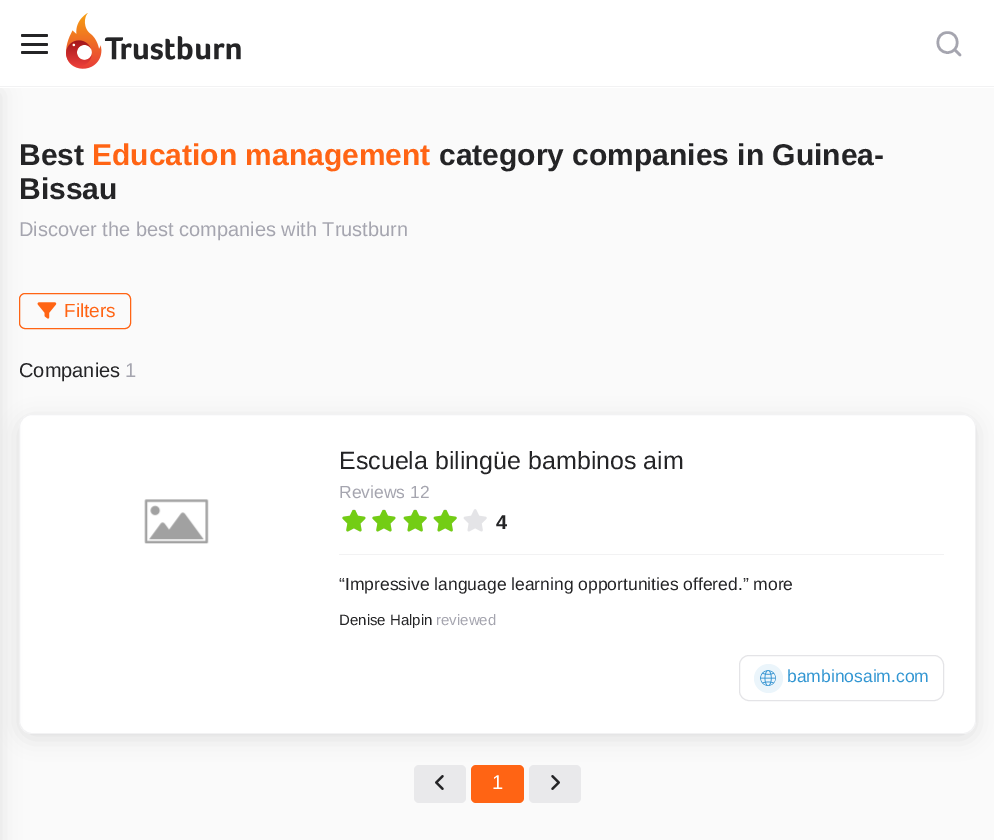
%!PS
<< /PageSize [994 840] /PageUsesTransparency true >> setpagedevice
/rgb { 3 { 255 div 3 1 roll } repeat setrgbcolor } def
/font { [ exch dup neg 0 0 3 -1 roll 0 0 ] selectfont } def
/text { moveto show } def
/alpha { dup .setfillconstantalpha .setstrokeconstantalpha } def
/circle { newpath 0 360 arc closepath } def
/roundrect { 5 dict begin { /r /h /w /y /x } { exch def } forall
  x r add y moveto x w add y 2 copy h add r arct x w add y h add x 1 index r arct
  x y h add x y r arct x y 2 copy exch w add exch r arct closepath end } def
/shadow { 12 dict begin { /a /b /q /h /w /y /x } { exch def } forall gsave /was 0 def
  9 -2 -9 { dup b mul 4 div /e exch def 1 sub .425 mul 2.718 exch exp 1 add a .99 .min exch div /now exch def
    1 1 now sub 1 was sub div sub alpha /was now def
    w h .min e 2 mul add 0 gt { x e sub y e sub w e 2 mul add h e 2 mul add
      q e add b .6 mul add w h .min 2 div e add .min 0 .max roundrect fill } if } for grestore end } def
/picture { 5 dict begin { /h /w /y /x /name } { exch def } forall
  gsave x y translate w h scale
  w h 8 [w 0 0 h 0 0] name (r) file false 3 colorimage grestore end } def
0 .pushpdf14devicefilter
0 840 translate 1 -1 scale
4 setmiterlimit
250 250 250 rgb
0 0 994 840 rectfill
255 100 20 rgb
19.5 293.5 111 35 5.5 roundrect stroke
233 233 235 rgb
414 765 52 38 5 roundrect fill
255 100 20 rgb
471 765 53 38 5 roundrect fill
233 233 235 rgb
529 765 52 38 5 roundrect fill
0 0 0 rgb
19 419 957 320 13 10 0.1 shadow
255 255 255 rgb
19 414 957 320 13 roundrect fill
0.15 alpha
165 165 175 rgb
19.5 414.5 956 319 12.5 roundrect stroke
1 alpha
0 0 0 rgb
-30 93 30 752 0 10 0.1 shadow
255 255 255 rgb
0 0 994 88 rectfill
242 242 243 rgb
0 86 994 1 rectfill
36 36 38 rgb
21 34 27 3 1.5 roundrect fill
21 43 27 3 1.5 roundrect fill
21 51 27 3 1.5 roundrect fill
(img_01.rgb) 66 13 175 56 picture
165 165 175 rgb
2.5 setlinewidth
1 setlinecap
1 setlinejoin
947.5 52.5 moveto 13 0 13 -20 0 -20 rcurveto -13 0 -13 20 0 20 rcurveto closepath 960 55 moveto -5.5 -5.5 rlineto stroke
(img_02.rgb) 37 302 20 17 picture
(img_03.rgb) 144 499 65 45 picture
(img_04.rgb) 342 509 24 23 picture
(img_05.rgb) 342 510 24 22 picture
(img_04.rgb) 372 509 24 23 picture
(img_05.rgb) 372 510 24 22 picture
(img_06.rgb) 403 509 24 23 picture
(img_07.rgb) 403 510 24 22 picture
(img_06.rgb) 433 509 24 23 picture
(img_07.rgb) 433 510 24 22 picture
(img_06.rgb) 463 509 24 23 picture
242 242 243 rgb
339 554 605 1 rectfill
228 228 231 rgb
1 setlinewidth
0 setlinecap
0 setlinejoin
739.5 655.5 204 45 9.5 roundrect stroke
235 245 251 rgb
768.5 678.5 14.5 circle fill
(img_08.rgb) 760 670 16 16 picture
(img_09.rgb) 435 775 9 15 picture
(img_10.rgb) 551 775 9 15 picture
/LiberationSans-Bold 30 font
36 36 38 rgb
(Best) 19 165 text
255 100 20 rgb
(Education management) 92 165 text
36 36 38 rgb
(category companies in Guinea-) 439 165 text
(Bissau) 19 199 text
/LiberationSans-Regular 20 font
165 165 175 rgb
(Discover the best companies with Trustburn) 19 236 text
/LiberationSans-Regular 19 font
255 100 20 rgb
(Filters) 64 317 text
/LiberationSans-Regular 20 font
36 36 38 rgb
(Companies) 19 377 text
165 165 175 rgb
(1) 125 377 text
/LiberationSans-Regular 25 font
36 36 38 rgb
(Escuela bilingüe bambinos aim) 339 469 text
/LiberationSans-Regular 17.5 font
165 165 175 rgb
(Reviews 12) 339 498 text
/LiberationSans-Bold 20 font
36 36 38 rgb
(4) 496 529 text
/LiberationSans-Regular 17.5 font
(“Impressive language learning opportunities offered.” more) 339 590 text
/LiberationSans-Regular 15 font
(Denise Halpin) 339 625 text
165 165 175 rgb
(reviewed) 436 625 text
/LiberationSans-Regular 17.5 font
50 150 210 rgb
(bambinosaim.com) 787 682 text
/LiberationSans-Regular 20 font
255 255 255 rgb
(1) 492 789 text
.poppdf14devicefilter showpage
